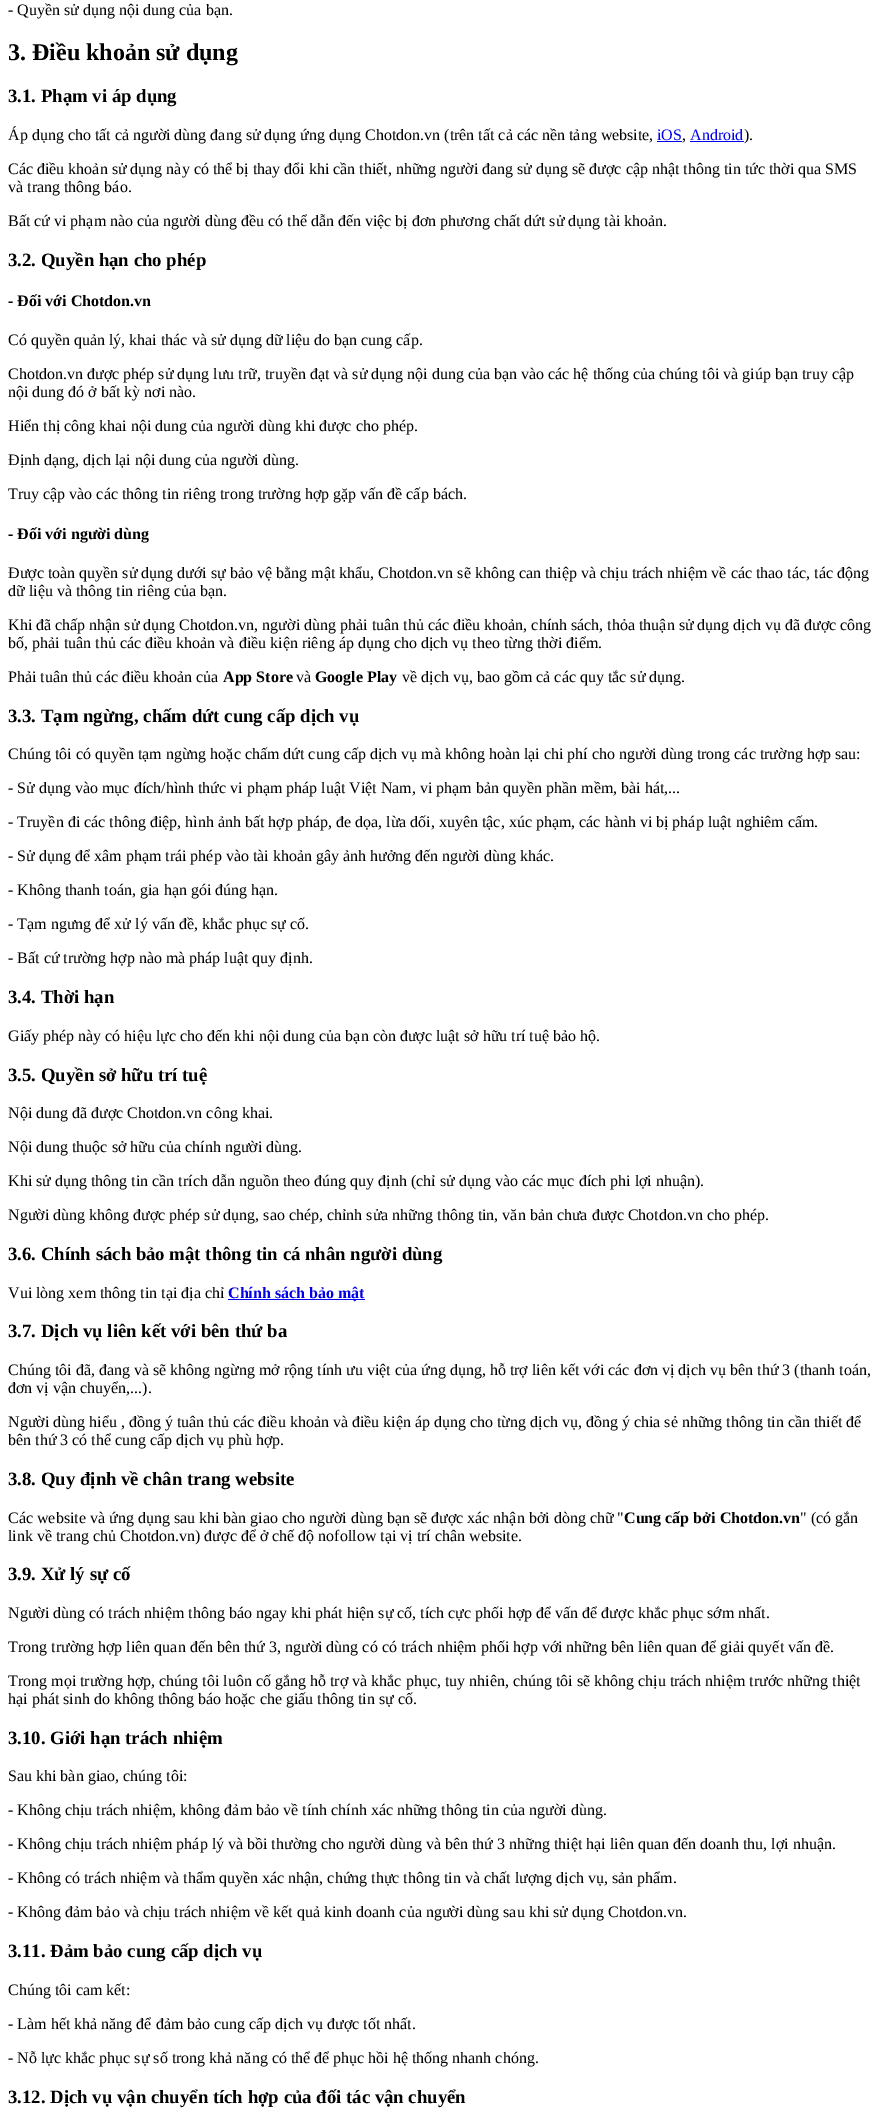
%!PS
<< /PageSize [884 2117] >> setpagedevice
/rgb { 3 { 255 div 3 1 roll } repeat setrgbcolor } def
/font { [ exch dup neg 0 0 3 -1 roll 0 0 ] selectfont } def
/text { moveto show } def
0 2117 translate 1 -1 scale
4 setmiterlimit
255 255 255 rgb
0 0 884 2117 rectfill
0 0 238 rgb
657 141 25 1 rectfill
690 141 54 1 rectfill
228 1299 137 1 rectfill
/LiberationSerif-Regular 16 font
0 0 0 rgb
(- Quyền sử dụng nội dung của bạn.) 8 15 text
/LiberationSerif-Bold 24 font
(3. Điều khoản sử dụng) 8 60 text
/LiberationSerif-Bold 18.75 font
(3.1. Phạm vi áp dụng) 8 102 text
/LiberationSerif-Regular 16 font
(Áp dụng cho tất cả người dùng đang sử dụng ứng dụng Chotdon.vn \(trên tất cả các nền tảng website,) 8 140 text
0 0 238 rgb
(iOS) 657 140 text
0 0 0 rgb
(,) 682 140 text
0 0 238 rgb
(Android) 690 140 text
0 0 0 rgb
(\).) 744 140 text
(Các điều khoản sử dụng này có thể bị thay đổi khi cần thiết, những người đang sử dụng sẽ được cập nhật thông tin tức thời qua SMS) 8 174 text
(và trang thông báo.) 8 192 text
(Bất cứ vi phạm nào của người dùng đều có thể dẫn đến việc bị đơn phương chất dứt sử dụng tài khoản.) 8 226 text
/LiberationSerif-Bold 18.75 font
(3.2. Quyền hạn cho phép) 8 266 text
/LiberationSerif-Bold 16 font
(- Đối với Chotdon.vn) 8 306 text
/LiberationSerif-Regular 16 font
(Có quyền quản lý, khai thác và sử dụng dữ liệu do bạn cung cấp.) 8 345 text
(Chotdon.vn được phép sử dụng lưu trữ, truyền đạt và sử dụng nội dung của bạn vào các hệ thống của chúng tôi và giúp bạn truy cập) 8 379 text
(nội dung đó ở bất kỳ nơi nào.) 8 397 text
(Hiển thị công khai nội dung của người dùng khi được cho phép.) 8 431 text
(Định dạng, dịch lại nội dung của người dùng.) 8 465 text
(Truy cập vào các thông tin riêng trong trường hợp gặp vấn đề cấp bách.) 8 499 text
/LiberationSerif-Bold 16 font
(- Đối với người dùng) 8 539 text
/LiberationSerif-Regular 16 font
(Được toàn quyền sử dụng dưới sự bảo vệ bằng mật khẩu, Chotdon.vn sẽ không can thiệp và chịu trách nhiệm về các thao tác, tác động) 8 578 text
(dữ liệu và thông tin riêng của bạn.) 8 596 text
(Khi đã chấp nhận sử dụng Chotdon.vn, người dùng phải tuân thủ các điều khoản, chính sách, thỏa thuận sử dụng dịch vụ đã được công) 8 630 text
(bố, phải tuân thủ các điều khoản và điều kiện riêng áp dụng cho dịch vụ theo từng thời điểm.) 8 648 text
(Phải tuân thủ các điều khoản của) 8 682 text
/LiberationSerif-Bold 16 font
(App Store) 223 682 text
/LiberationSerif-Regular 16 font
(và) 296 682 text
/LiberationSerif-Bold 16 font
(Google Play) 315 682 text
/LiberationSerif-Regular 16 font
(về dịch vụ, bao gồm cả các quy tắc sử dụng.) 402 682 text
/LiberationSerif-Bold 18.75 font
(3.3. Tạm ngừng, chấm dứt cung cấp dịch vụ) 8 722 text
/LiberationSerif-Regular 16 font
(Chúng tôi có quyền tạm ngừng hoặc chấm dứt cung cấp dịch vụ mà không hoàn lại chi phí cho người dùng trong các trường hợp sau:) 8 759 text
(- Sử dụng vào mục đích/hình thức vi phạm pháp luật Việt Nam, vi phạm bản quyền phần mềm, bài hát,...) 8 793 text
(- Truyền đi các thông điệp, hình ảnh bất hợp pháp, đe dọa, lừa dối, xuyên tậc, xúc phạm, các hành vi bị pháp luật nghiêm cấm.) 8 827 text
(- Sử dụng để xâm phạm trái phép vào tài khoản gây ảnh hưởng đến người dùng khác.) 8 861 text
(- Không thanh toán, gia hạn gói đúng hạn.) 8 895 text
(- Tạm ngưng để xử lý vấn đề, khắc phục sự cố.) 8 929 text
(- Bất cứ trường hợp nào mà pháp luật quy định.) 8 963 text
/LiberationSerif-Bold 18.75 font
(3.4. Thời hạn) 8 1003 text
/LiberationSerif-Regular 16 font
(Giấy phép này có hiệu lực cho đến khi nội dung của bạn còn được luật sở hữu trí tuệ bảo hộ.) 8 1041 text
/LiberationSerif-Bold 18.75 font
(3.5. Quyền sở hữu trí tuệ) 8 1081 text
/LiberationSerif-Regular 16 font
(Nội dung đã được Chotdon.vn công khai.) 8 1118 text
(Nội dung thuộc sở hữu của chính người dùng.) 8 1152 text
(Khi sử dụng thông tin cần trích dẫn nguồn theo đúng quy định \(chỉ sử dụng vào các mục đích phi lợi nhuận\).) 8 1186 text
(Người dùng không được phép sử dụng, sao chép, chỉnh sửa những thông tin, văn bản chưa được Chotdon.vn cho phép.) 8 1220 text
/LiberationSerif-Bold 18.75 font
(3.6. Chính sách bảo mật thông tin cá nhân người dùng) 8 1260 text
/LiberationSerif-Regular 16 font
(Vui lòng xem thông tin tại địa chỉ) 8 1298 text
/LiberationSerif-Bold 16 font
0 0 238 rgb
(Chính sách bảo mật) 228 1298 text
/LiberationSerif-Bold 18.75 font
0 0 0 rgb
(3.7. Dịch vụ liên kết với bên thứ ba) 8 1337 text
/LiberationSerif-Regular 16 font
(Chúng tôi đã, đang và sẽ không ngừng mở rộng tính ưu việt của ứng dụng, hỗ trợ liên kết với các đơn vị dịch vụ bên thứ 3 \(thanh toán,) 8 1375 text
(đơn vị vận chuyển,...\).) 8 1393 text
(Người dùng hiểu , đồng ý tuân thủ các điều khoản và điều kiện áp dụng cho từng dịch vụ, đồng ý chia sẻ những thông tin cần thiết để) 8 1427 text
(bên thứ 3 có thể cung cấp dịch vụ phù hợp.) 8 1445 text
/LiberationSerif-Bold 18.75 font
(3.8. Quy định về chân trang website) 8 1485 text
/LiberationSerif-Regular 16 font
(Các website và ứng dụng sau khi bàn giao cho người dùng bạn sẽ được xác nhận bởi dòng chữ ") 8 1523 text
/LiberationSerif-Bold 16 font
(Cung cấp bởi Chotdon.vn) 624 1523 text
/LiberationSerif-Regular 16 font
(" \(có gắn) 800 1523 text
(link về trang chủ Chotdon.vn\) được để ở chế độ nofollow tại vị trí chân website.) 8 1541 text
/LiberationSerif-Bold 18.75 font
(3.9. Xử lý sự cố) 8 1580 text
/LiberationSerif-Regular 16 font
(Người dùng có trách nhiệm thông báo ngay khi phát hiện sự cố, tích cực phối hợp để vấn để được khắc phục sớm nhất.) 8 1618 text
(Trong trường hợp liên quan đến bên thứ 3, người dùng có có trách nhiệm phối hợp với những bên liên quan để giải quyết vấn đề.) 8 1652 text
(Trong mọi trường hợp, chúng tôi luôn cố gắng hỗ trợ và khắc phục, tuy nhiên, chúng tôi sẽ không chịu trách nhiệm trước những thiệt) 8 1686 text
(hại phát sinh do không thông báo hoặc che giấu thông tin sự cố.) 8 1704 text
/LiberationSerif-Bold 18.75 font
(3.10. Giới hạn trách nhiệm) 8 1744 text
/LiberationSerif-Regular 16 font
(Sau khi bàn giao, chúng tôi:) 8 1781 text
(- Không chịu trách nhiệm, không đảm bảo về tính chính xác những thông tin của người dùng.) 8 1815 text
(- Không chịu trách nhiệm pháp lý và bồi thường cho người dùng và bên thứ 3 những thiệt hại liên quan đến doanh thu, lợi nhuận.) 8 1849 text
(- Không có trách nhiệm và thẩm quyền xác nhận, chứng thực thông tin và chất lượng dịch vụ, sản phẩm.) 8 1883 text
(- Không đảm bảo và chịu trách nhiệm về kết quả kinh doanh của người dùng sau khi sử dụng Chotdon.vn.) 8 1917 text
/LiberationSerif-Bold 18.75 font
(3.11. Đảm bảo cung cấp dịch vụ) 8 1957 text
/LiberationSerif-Regular 16 font
(Chúng tôi cam kết:) 8 1995 text
(- Làm hết khả năng để đảm bảo cung cấp dịch vụ được tốt nhất.) 8 2029 text
(- Nỗ lực khắc phục sự số trong khả năng có thể để phục hồi hệ thống nhanh chóng.) 8 2063 text
/LiberationSerif-Bold 18.75 font
(3.12. Dịch vụ vận chuyển tích hợp của đối tác vận chuyển) 8 2103 text
showpage
